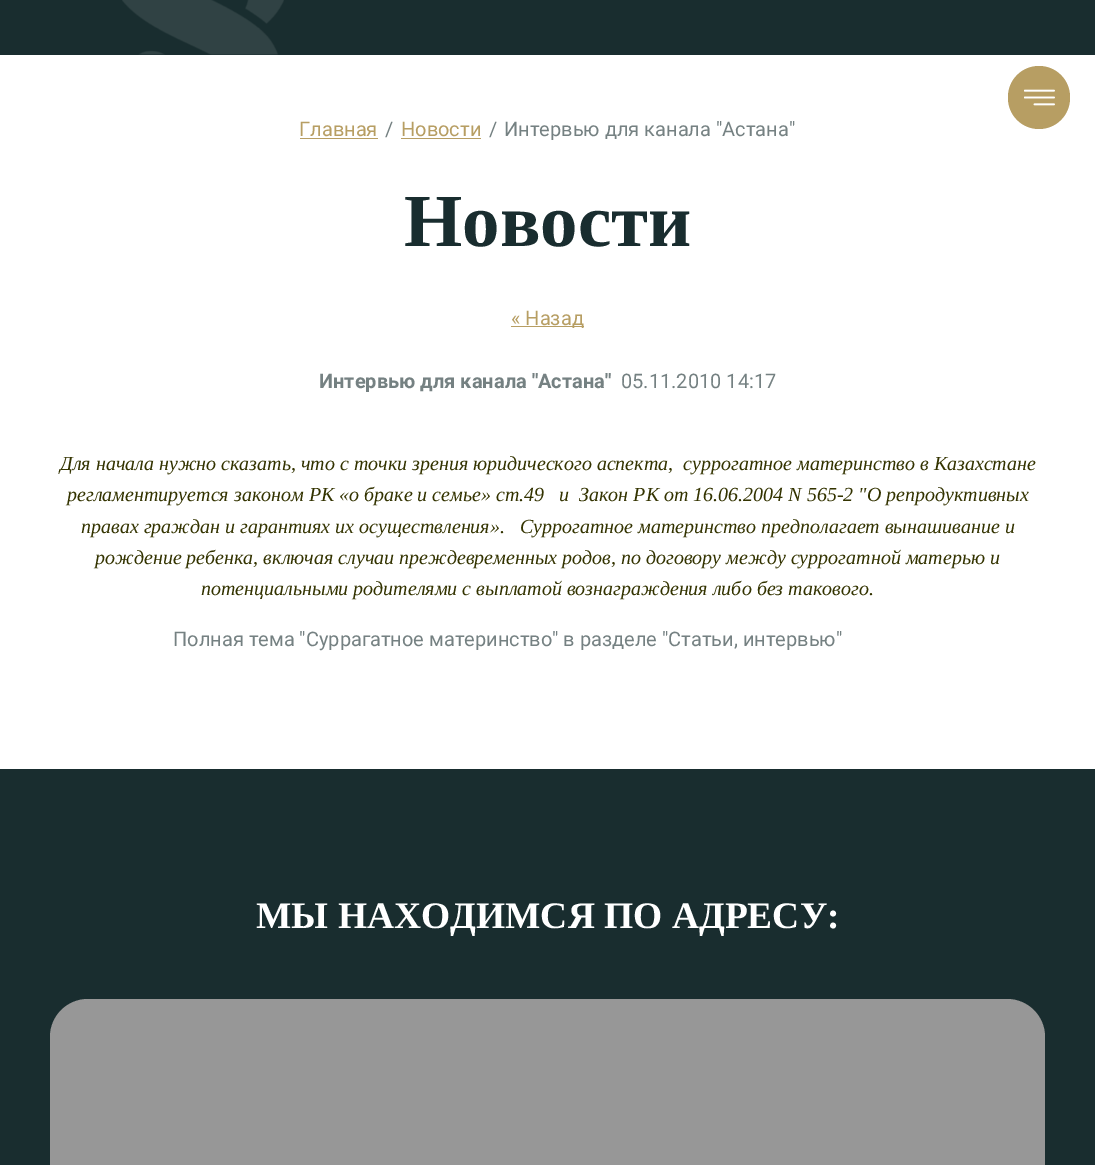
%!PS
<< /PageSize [1095 1165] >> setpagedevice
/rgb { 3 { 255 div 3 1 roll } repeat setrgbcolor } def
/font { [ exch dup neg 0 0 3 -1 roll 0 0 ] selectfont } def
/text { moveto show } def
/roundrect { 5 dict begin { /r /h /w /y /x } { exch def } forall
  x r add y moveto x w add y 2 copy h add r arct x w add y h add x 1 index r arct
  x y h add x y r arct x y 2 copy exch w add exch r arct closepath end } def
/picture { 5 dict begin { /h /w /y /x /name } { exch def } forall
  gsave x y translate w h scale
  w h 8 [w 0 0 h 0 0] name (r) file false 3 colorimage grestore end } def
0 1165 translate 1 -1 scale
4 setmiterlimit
255 255 255 rgb
0 0 1095 1165 rectfill
25 45 47 rgb
0 0 1095 55 rectfill
(img_01.rgb) 122 0 162 55 picture
183 158 99 rgb
1008 66 62 63 31 roundrect fill
(img_02.rgb) 1024 89 31 17 picture
300 138 78 1 rectfill
401 138 80 1 rectfill
511 326 73 1 rectfill
25 45 47 rgb
0 769 1095 396 rectfill
151 151 151 rgb
50 999 995 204 38 roundrect fill
/Roboto-Regular 20 font
183 158 99 rgb
(Главная) 299 136 text
117 129 130 rgb
(/) 385 136 text
183 158 99 rgb
(Новости) 401 136 text
117 129 130 rgb
(/) 489 136 text
(Интервью для канала "Астана") 504 136 text
/LiberationSerif-Bold 75 font
25 45 47 rgb
(Новости) 404 246 text
/Roboto-Regular 20 font
183 158 99 rgb
(« Назад) 511 325 text
/Roboto-Bold 20 font
117 129 130 rgb
(Интервью для канала "Астана") 319 388 text
/Roboto-Regular 20 font
(05.11.2010 14:17) 621 388 text
/LiberationSerif-Italic 20 font
51 51 0 rgb
(Для начала нужно сказать, что с точки зрения юридического аспекта,  суррогатное материнство в Казахстане) 60 470 text
(регламентируется законом РК «о браке и семье» ст.49   и  Закон РК от 16.06.2004 N 565-2 "О репродуктивных) 67 501 text
(правах граждан и гарантиях их осуществления».   Суррогатное материнство предполагает вынашивание и) 81 533 text
(рождение ребенка, включая случаи преждевременных родов, по договору между суррогатной матерью и) 95 564 text
(потенциальными родителями с выплатой вознаграждения либо без такового.) 201 595 text
/Roboto-Regular 20 font
117 129 130 rgb
(Полная тема "Суррагатное материнство" в разделе "Статьи, интервью") 173 646 text
/LiberationSerif-Bold 37.5 font
255 255 255 rgb
(МЫ НАХОДИМСЯ ПО АДРЕСУ:) 256 928 text
showpage
